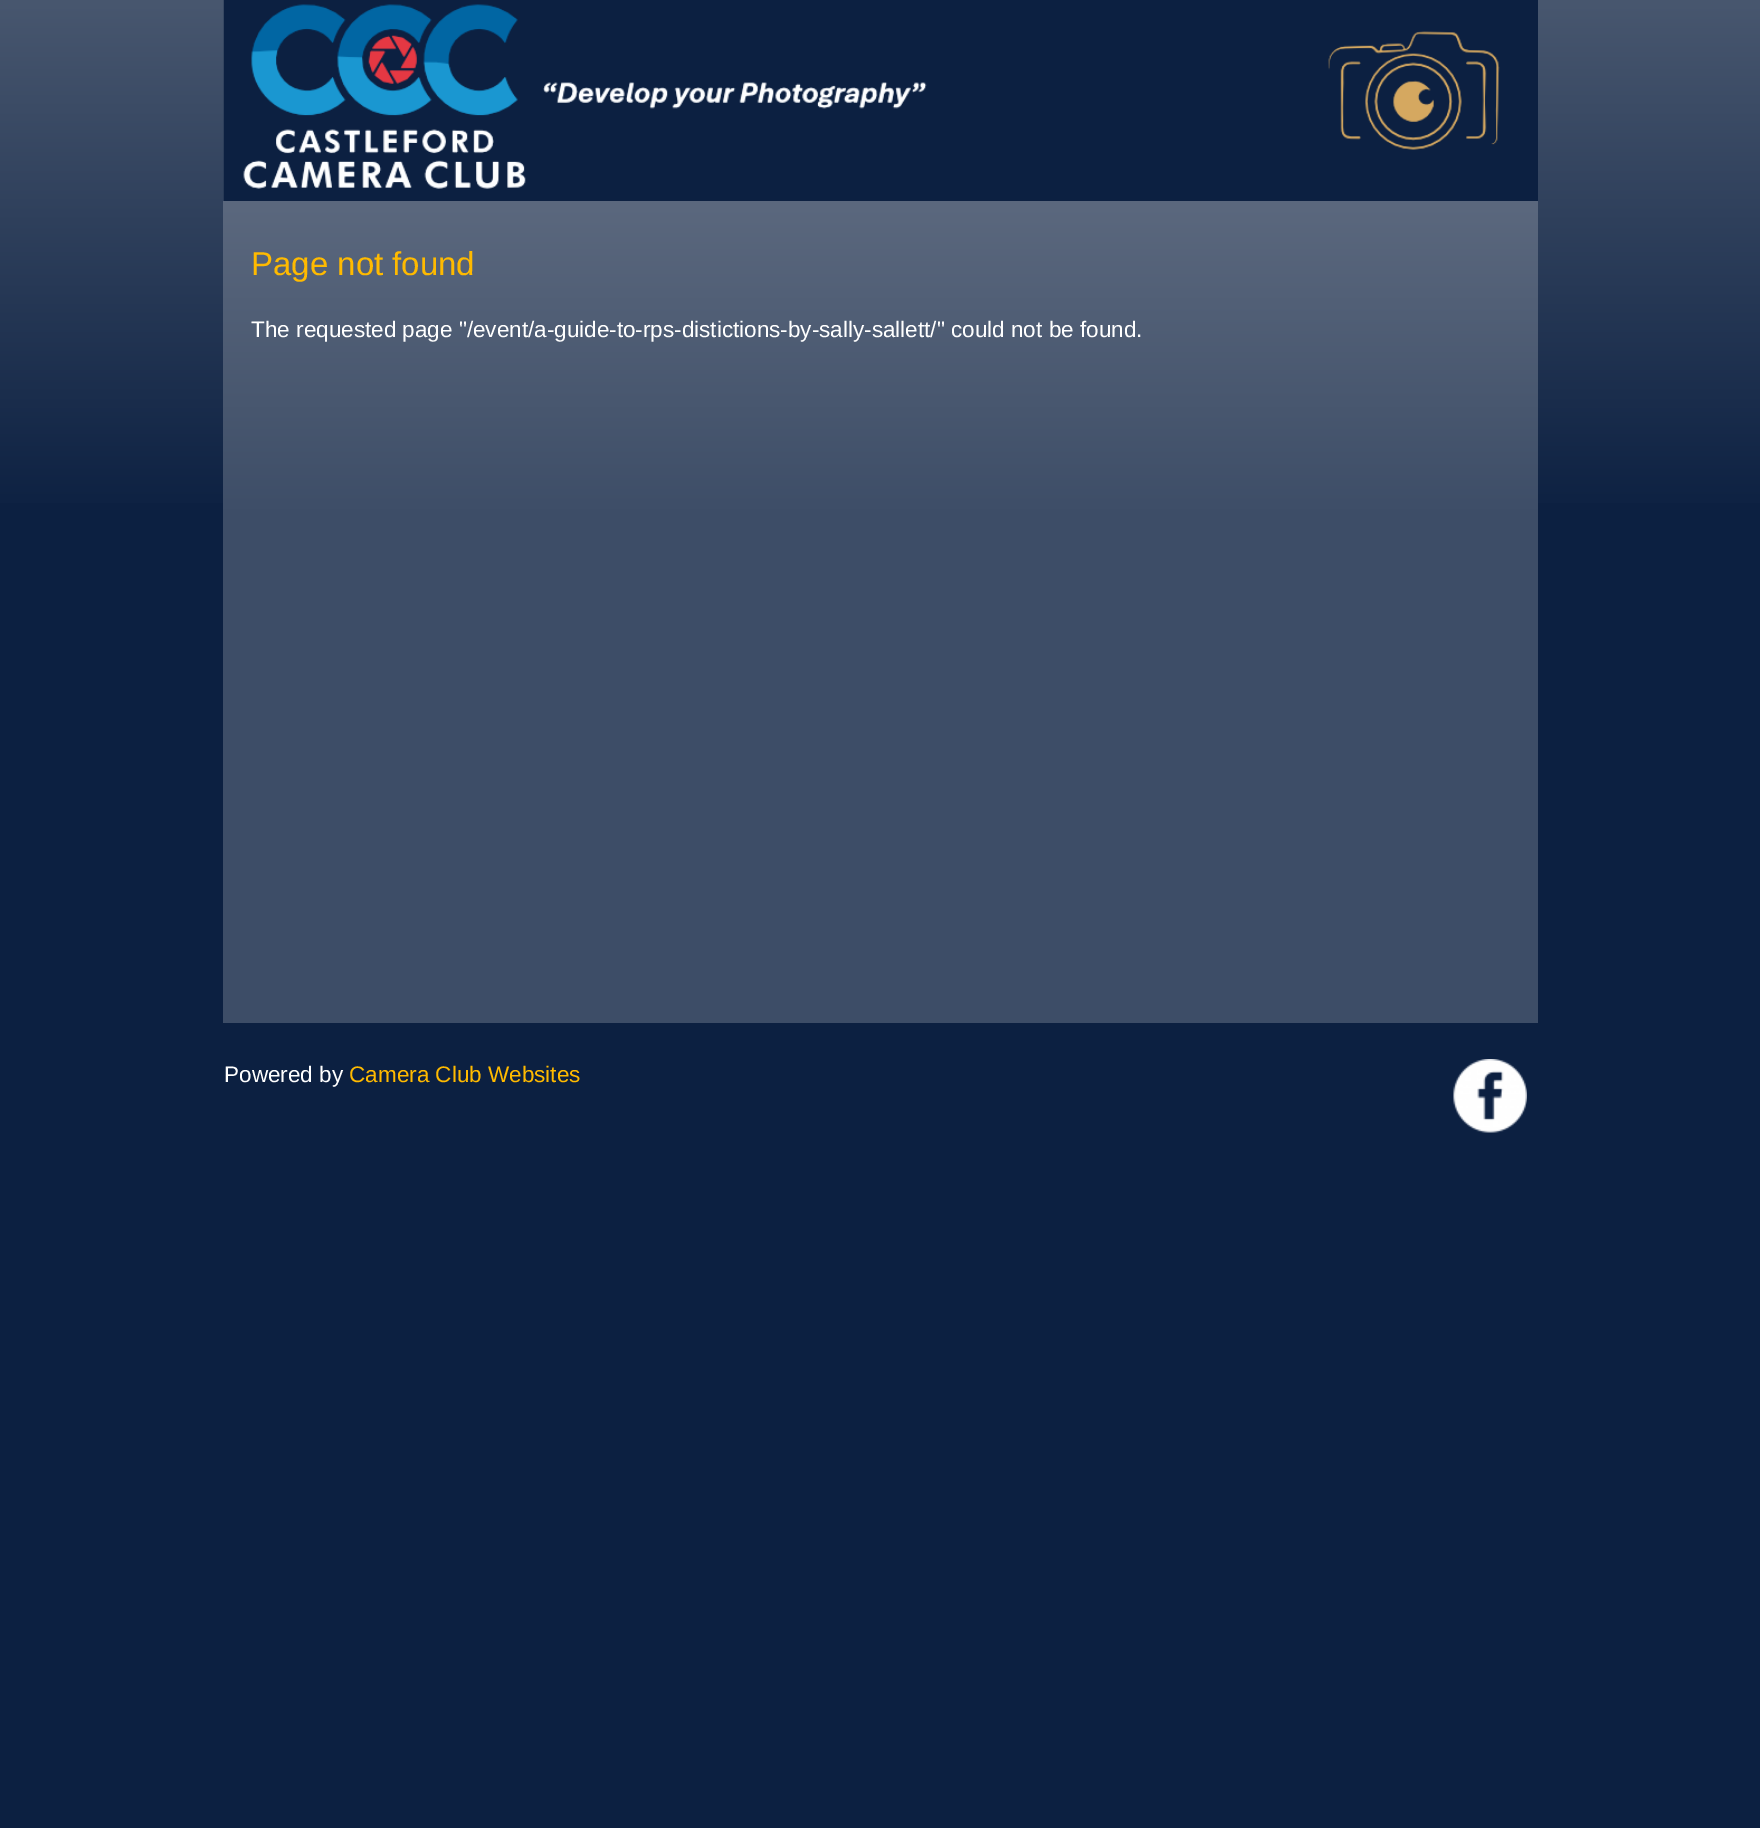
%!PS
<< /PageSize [1760 1828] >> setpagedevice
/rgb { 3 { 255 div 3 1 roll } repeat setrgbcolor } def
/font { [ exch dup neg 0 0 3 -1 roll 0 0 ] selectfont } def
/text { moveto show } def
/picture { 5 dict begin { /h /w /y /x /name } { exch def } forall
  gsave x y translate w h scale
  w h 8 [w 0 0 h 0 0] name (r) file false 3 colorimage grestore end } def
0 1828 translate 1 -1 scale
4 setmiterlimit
12 32 65 rgb
0 0 1760 1828 rectfill
gsave 0 0 moveto 1760 0 rlineto 0 503 rlineto -1760 0 rlineto closepath clip newpath
<< /ShadingType 2 /ColorSpace /DeviceRGB /Coords [881 0 881 1140] /Extend [true true] /Function << /FunctionType 3 /Domain [0 1] /Functions [<< /FunctionType 2 /Domain [0 1] /C0 [0.282 0.341 0.435] /C1 [0.047 0.125 0.255] /N 1 >> << /FunctionType 2 /Domain [0 1] /C0 [0.047 0.125 0.255] /C1 [0.047 0.125 0.255] /N 1 >>] /Bounds [0.46] /Encode [0 1 0 1] >> >> shfill grestore
gsave 223 201 moveto 1315 0 rlineto 0 822 rlineto -1315 0 rlineto closepath clip newpath
<< /ShadingType 2 /ColorSpace /DeviceRGB /Coords [881 0 881 1140] /Extend [true true] /Function << /FunctionType 3 /Domain [0 1] /Functions [<< /FunctionType 2 /Domain [0 1] /C0 [0.427 0.475 0.549] /C1 [0.239 0.302 0.404] /N 1 >> << /FunctionType 2 /Domain [0 1] /C0 [0.239 0.302 0.404] /C1 [0.239 0.302 0.404] /N 1 >>] /Bounds [0.46] /Encode [0 1 0 1] >> >> shfill grestore
1500 0 38 201 rectfill
(img_01.rgb) 223 0 1277 201 picture
(img_02.rgb) 1453 1059 74 74 picture
/LiberationSans-Regular 33 font
255 186 0 rgb
(Page not found) 251 275 text
/LiberationSans-Regular 22.5 font
255 255 255 rgb
(The requested page "/event/a-guide-to-rps-distictions-by-sally-sallett/" could not be found.) 251 337 text
(Powered by) 224 1082 text
255 186 0 rgb
(Camera Club Websites) 349 1082 text
showpage
